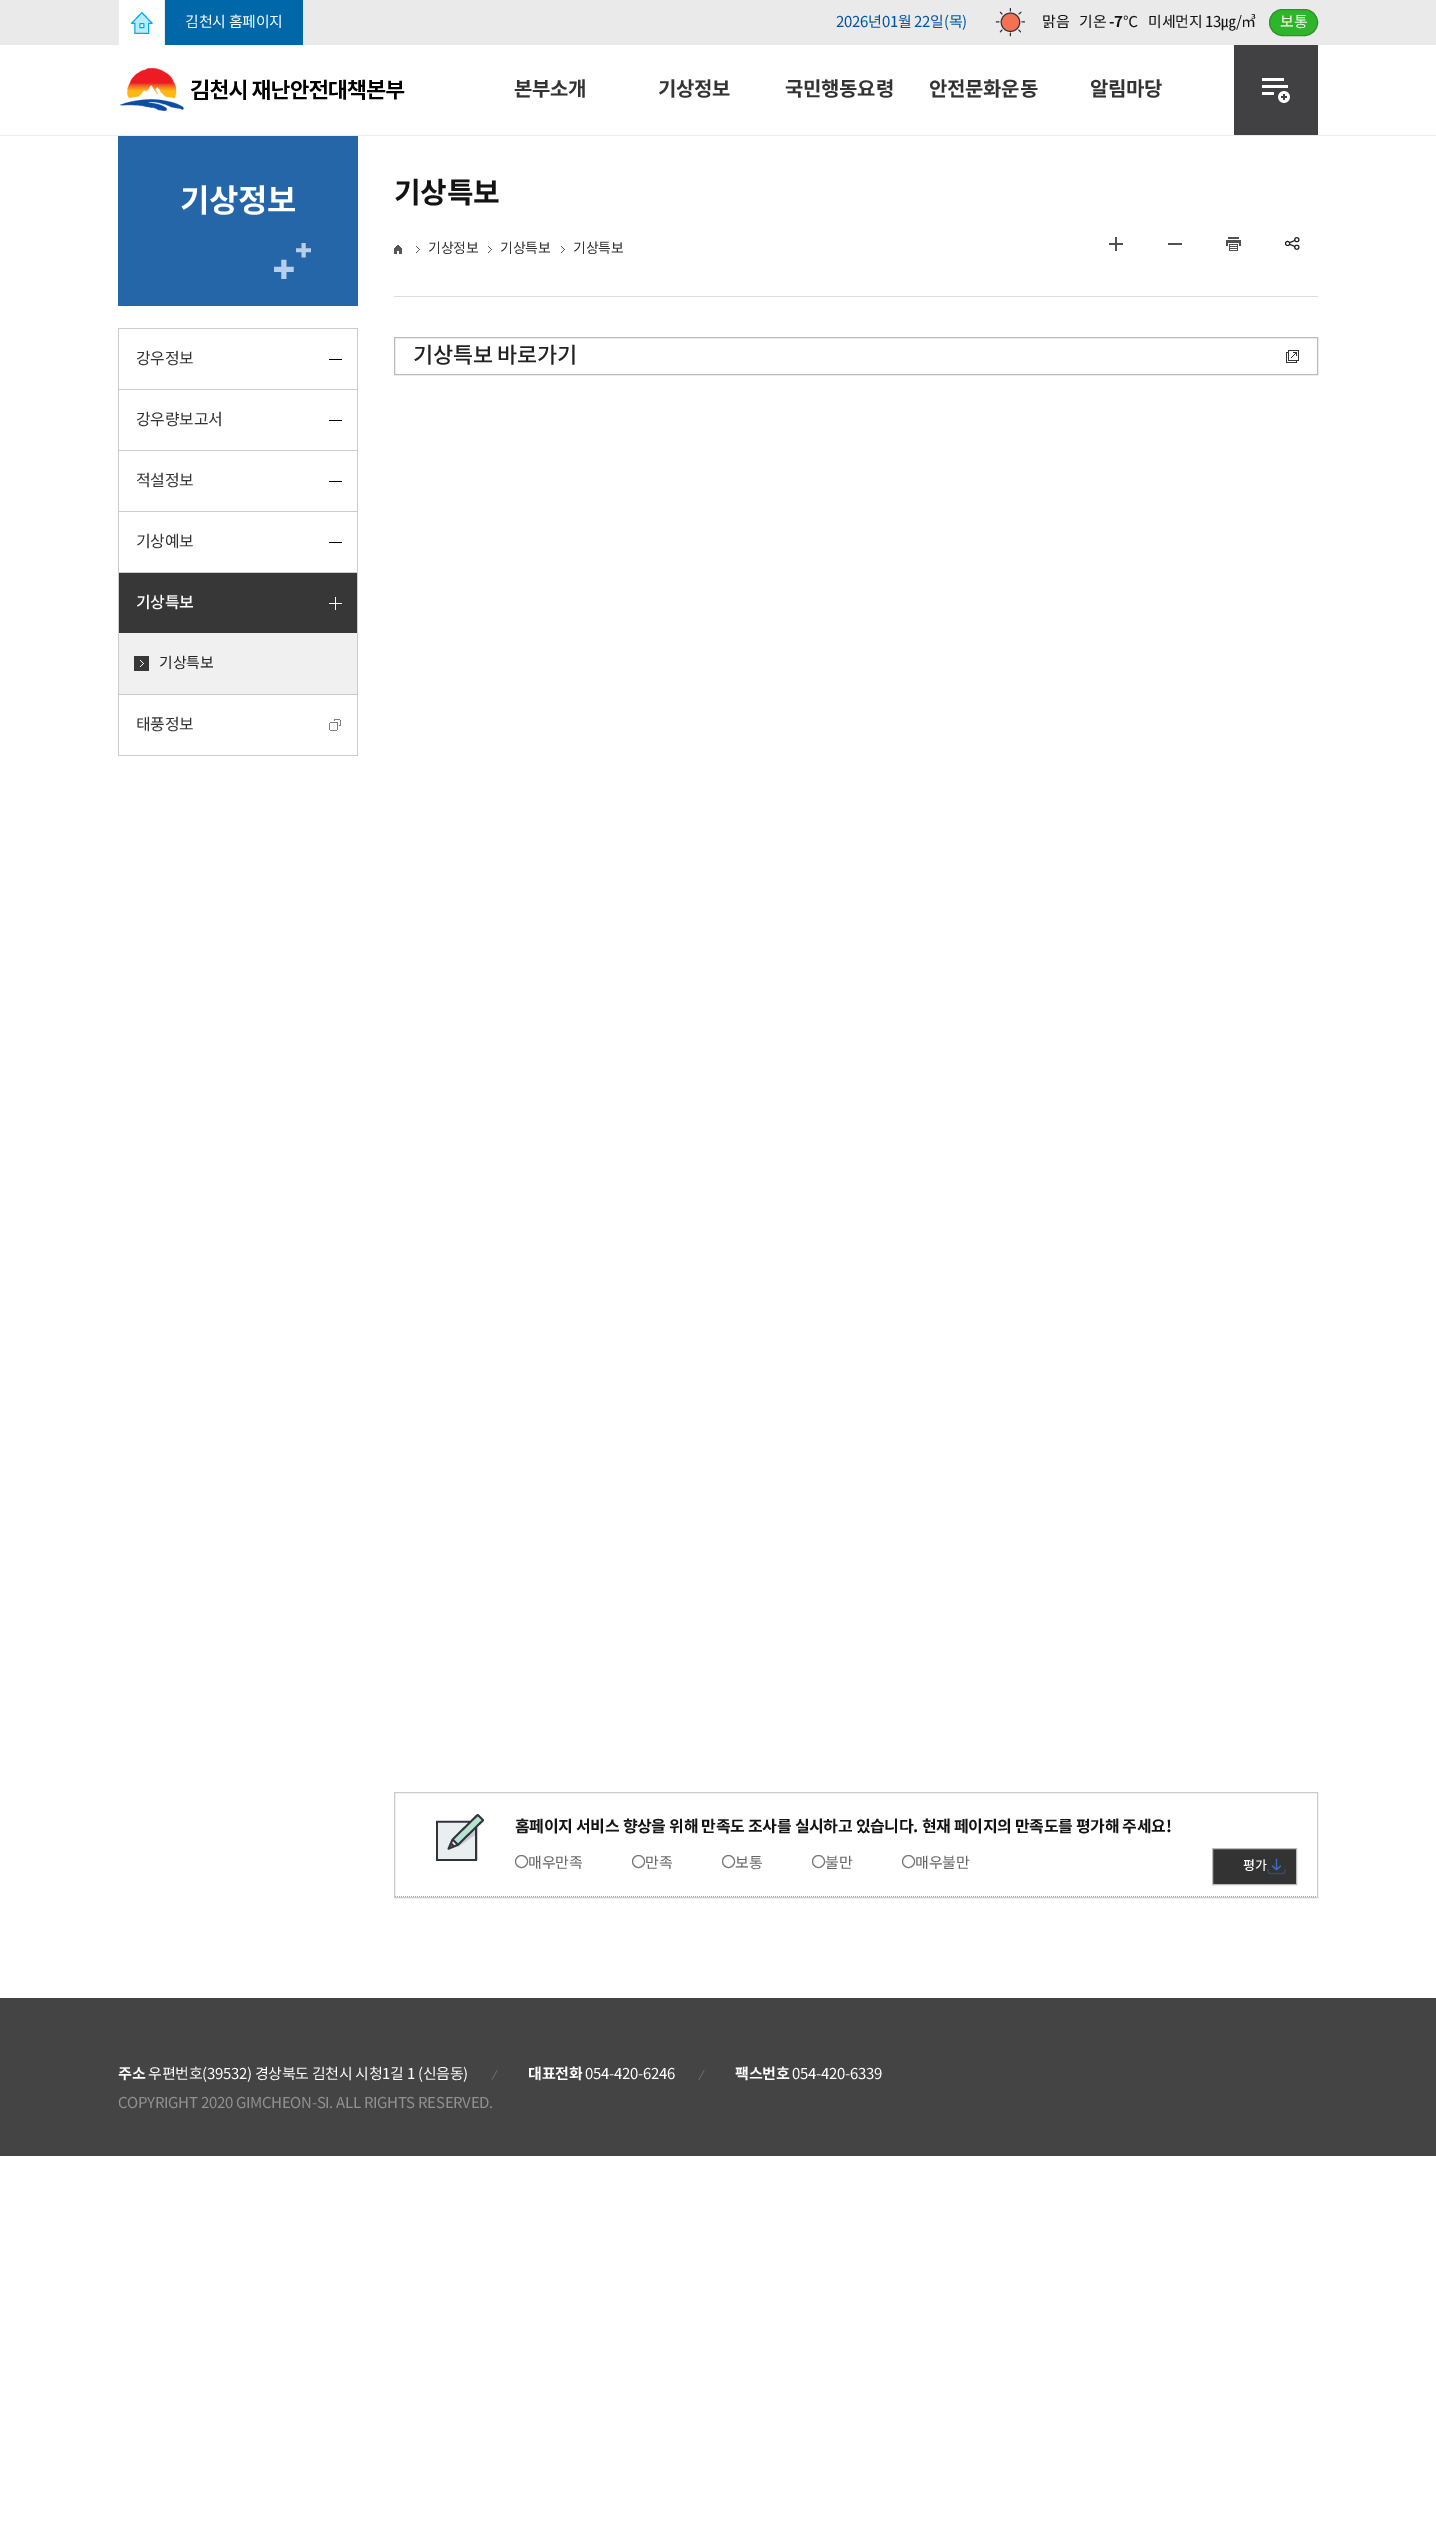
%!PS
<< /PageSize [1436 2543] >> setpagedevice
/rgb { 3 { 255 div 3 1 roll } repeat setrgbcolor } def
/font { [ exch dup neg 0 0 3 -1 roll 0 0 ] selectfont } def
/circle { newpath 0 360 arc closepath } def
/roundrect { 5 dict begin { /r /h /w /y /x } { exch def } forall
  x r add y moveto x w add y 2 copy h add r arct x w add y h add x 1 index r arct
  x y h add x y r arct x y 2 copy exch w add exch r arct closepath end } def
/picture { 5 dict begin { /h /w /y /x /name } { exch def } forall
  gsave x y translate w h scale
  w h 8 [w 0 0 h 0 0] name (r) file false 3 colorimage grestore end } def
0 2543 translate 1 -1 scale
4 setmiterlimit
255 255 255 rgb
0 0 1436 2543 rectfill
234 234 234 rgb
0 0 1436 45 rectfill
255 255 255 rgb
119 0 45 45 rectfill
(img_01.rgb) 131 12 22 22 picture
235 236 238 rgb
164 0 1 45 rectfill
118 0 1 45 rectfill
0 104 169 rgb
165 0 138 45 rectfill
(img_02.rgb) 995 8 30 29 picture
45 182 42 rgb
1269.5 9.5 48 26 13 roundrect gsave fill grestore
48 143 46 rgb
stroke
(img_03.rgb) 120 68 285 43 picture
235 236 238 rgb
0 135 1436 1 rectfill
65 65 67 rgb
1234 45 84 90 rectfill
(img_04.rgb) 1262 78 28 25 picture
36 102 168 rgb
118 136 240 170 rectfill
(img_05.rgb) 274 243 37 36 picture
204 204 204 rgb
118 328 240 1 rectfill
357 329 1 427 rectfill
118 389 240 1 rectfill
118 329 1 61 rectfill
0 0 0 rgb
329 359 13 1 rectfill
204 204 204 rgb
118 450 240 1 rectfill
118 390 1 61 rectfill
0 0 0 rgb
329 420 13 1 rectfill
204 204 204 rgb
118 511 240 1 rectfill
118 451 1 61 rectfill
0 0 0 rgb
329 481 13 1 rectfill
204 204 204 rgb
118 572 240 1 rectfill
118 512 1 61 rectfill
0 0 0 rgb
329 542 13 1 rectfill
204 204 204 rgb
118 694 240 1 rectfill
118 573 1 122 rectfill
55 55 55 rgb
119 573 238 60 rectfill
(img_06.rgb) 329 597 13 13 picture
240 240 240 rgb
119 633 238 61 rectfill
(img_07.rgb) 134 656 15 15 picture
204 204 204 rgb
118 755 240 1 rectfill
118 695 1 61 rectfill
(img_08.rgb) 329 719 12 12 picture
221 221 221 rgb
394 296 924 1 rectfill
(img_09.rgb) 394 245 8 9 picture
(img_10.rgb) 416 246 4 7 picture
(img_10.rgb) 488 246 4 7 picture
(img_10.rgb) 561 246 4 7 picture
(img_11.rgb) 1109 237 14 14 picture
80 80 80 rgb
1168 243 14 2 rectfill
(img_12.rgb) 1226 237 15 14 picture
(img_13.rgb) 1285 237 15 13 picture
187 187 187 rgb
394.5 337.5 923 37 rectstroke
(img_14.rgb) 1286 350 13 13 picture
204 204 204 rgb
394.5 1792.5 923 105 rectstroke
(img_15.rgb) 436 1814 48 47 picture
170 170 170 rgb
[1 1] 0 setdash
395 1896.5 moveto 922 0 rlineto stroke
118 118 118 rgb
[] 0 setdash
521.5 1861.5 6 circle stroke
638.5 1861.5 6 circle stroke
728.5 1861.5 6 circle stroke
818.5 1861.5 6 circle stroke
908.5 1861.5 6 circle stroke
51 51 51 rgb
1213 1849 83 35 rectfill
(img_16.rgb) 1267 1858 19 17 picture
187 187 187 rgb
1212.5 1848.5 84 36 rectstroke
68 68 68 rgb
0 1998 1436 158 rectfill
(img_17.rgb) 491 2070 7 10 picture
(img_17.rgb) 698 2070 7 10 picture
/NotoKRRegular-Regular 15 font
255 255 255 rgb
185 27 moveto -0.3 0 (김천시 홈페이지) ashow
0 85 162 rgb
836 27 moveto -0.3 0 (2026년01월 22일\(목\)) ashow
19 19 19 rgb
1042 27 moveto -0.3 0 (맑음) ashow
1079 27 moveto -0.3 0 (기온) ashow
/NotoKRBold-Bold 15 font
1109 27 moveto -0.3 0 (-7) ashow
/NotoSansCJKKR-Regular 15 font
1123 27 moveto -0.3 0 (℃) ashow
/NotoKRRegular-Regular 15 font
1148 27 moveto -0.3 0 (미세먼지 13) ashow
/NotoSansCJKKR-Regular 15 font
1221 27 moveto -0.3 0 (㎍) ashow
/NotoKRRegular-Regular 15 font
1236 27 moveto -0.3 0 (/) ashow
/NotoSansCJKKR-Regular 15 font
1241 27 moveto -0.3 0 (㎥) ashow
/NotoKRRegular-Regular 15 font
255 255 255 rgb
1280 27 moveto -0.3 0 (보통) ashow
/NotoKRBold-Bold 20 font
51 51 51 rgb
514 96 moveto -0.3 0 (본부소개) ashow
658 96 moveto -0.3 0 (기상정보) ashow
785 96 moveto -0.3 0 (국민행동요령) ashow
929 96 moveto -0.3 0 (안전문화운동) ashow
1090 96 moveto -0.3 0 (알림마당) ashow
/NotoKRBold-Bold 32 font
255 255 255 rgb
180 212 moveto -0.3 0 (기상정보) ashow
/NotoKRRegular-Regular 16 font
51 51 51 rgb
136 364 moveto -0.3 0 (강우정보) ashow
136 425 moveto -0.3 0 (강우량보고서) ashow
136 486 moveto -0.3 0 (적설정보) ashow
136 547 moveto -0.3 0 (기상예보) ashow
/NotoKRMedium-Medium 16 font
255 255 255 rgb
136 608 moveto -0.3 0 (기상특보) ashow
/NotoKRRegular-Regular 15 font
34 34 34 rgb
159 668 moveto -0.3 0 (기상특보) ashow
/NotoKRRegular-Regular 16 font
51 51 51 rgb
136 730 moveto -0.3 0 (태풍정보) ashow
/NotoKRBold-Bold 29 font
19 19 19 rgb
394 203 moveto -0.3 0 (기상특보) ashow
/NotoKRRegular-Regular 14 font
51 51 51 rgb
428 253 moveto -0.3 0 (기상정보) ashow
500 253 moveto -0.3 0 (기상특보) ashow
573 253 moveto -0.3 0 (기상특보) ashow
/NotoKRMedium-Medium 22 font
34 34 34 rgb
413 363 moveto -0.3 0 (기상특보 바로가기) ashow
/NotoKRBold-Bold 16 font
19 19 19 rgb
515 1832 moveto -0.3 0 (홈페이지 서비스 향상을 위해 만족도 조사를 실시하고 있습니다. 현재 페이지의 만족도를 평가해 주세요!) ashow
/NotoKRRegular-Regular 15 font
102 102 102 rgb
528 1868 moveto -0.3 0 (매우만족) ashow
645 1868 moveto -0.3 0 (만족) ashow
735 1868 moveto -0.3 0 (보통) ashow
825 1868 moveto -0.3 0 (불만) ashow
915 1868 moveto -0.3 0 (매우불만) ashow
/NotoKRMedium-Medium 13 font
255 255 255 rgb
1243 1870 moveto -0.3 0 (평가) ashow
/NotoKRBold-Bold 15 font
118 2079 moveto -0.3 0 (주소) ashow
/NotoKRRegular-Regular 15 font
148 2079 moveto -0.3 0 (우편번호\(39532\) 경상북도 김천시 시청1길 1 \(신음동\)) ashow
/NotoKRBold-Bold 15 font
528 2079 moveto -0.3 0 (대표전화) ashow
/NotoKRRegular-Regular 15 font
585 2079 moveto -0.3 0 (054-420-6246) ashow
/NotoKRBold-Bold 15 font
735 2079 moveto -0.3 0 (팩스번호) ashow
/NotoKRRegular-Regular 15 font
792 2079 moveto -0.3 0 (054-420-6339) ashow
143 144 144 rgb
118 2108 moveto -0.3 0 (COPYRIGHT 2020 GIMCHEON-SI. ALL RIGHTS RESERVED.) ashow
showpage
